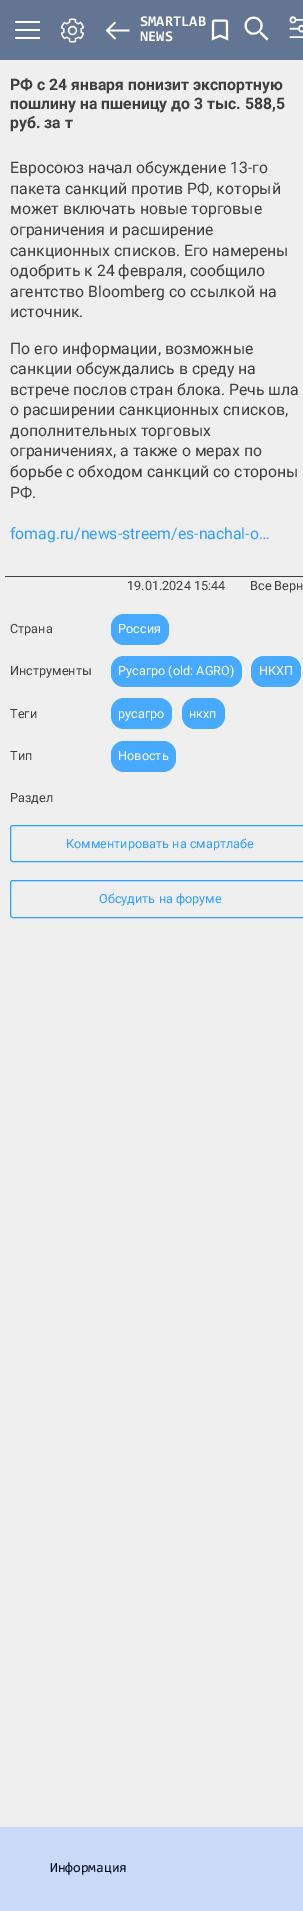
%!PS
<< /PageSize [303 1911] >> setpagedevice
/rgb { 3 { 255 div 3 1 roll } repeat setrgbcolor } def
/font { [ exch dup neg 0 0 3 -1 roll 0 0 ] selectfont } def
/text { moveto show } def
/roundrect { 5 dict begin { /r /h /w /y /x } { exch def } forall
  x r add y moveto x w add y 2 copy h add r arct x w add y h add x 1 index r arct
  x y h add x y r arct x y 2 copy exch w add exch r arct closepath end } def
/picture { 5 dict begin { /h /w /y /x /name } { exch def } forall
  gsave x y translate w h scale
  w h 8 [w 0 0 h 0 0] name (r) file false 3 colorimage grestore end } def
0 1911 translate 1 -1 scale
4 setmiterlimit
239 239 239 rgb
0 0 303 1911 rectfill
98 117 146 rgb
0 0 303 60 rectfill
255 255 255 rgb
15 21 25 2 rectfill
15 29 25 2 rectfill
15 37 25 2 rectfill
(img_01.rgb) 60 18 25 25 picture
(img_02.rgb) 105 21 25 19 picture
(img_03.rgb) 211 19 18 22 picture
(img_04.rgb) 244 16 25 25 picture
(img_05.rgb) 289 16 14 22 picture
63 63 63 rgb
5 576 298 1 rectfill
71 170 255 rgb
111 614 58 31 13 roundrect fill
111 656 131 31 13 roundrect fill
251 656 50 31 13 roundrect fill
111 698 61 31 13 roundrect fill
182 698 43 31 13 roundrect fill
111 741 65 31 13 roundrect fill
49 159 255 rgb
10.5 825.5 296 36 2.5 roundrect stroke
10.5 880.5 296 37 2.5 roundrect stroke
201 218 248 rgb
0 1827 303 84 rectfill
/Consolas-Bold 15 font
255 255 255 rgb
(SMARTLAB) 140 26 text
(NEWS) 140 41 text
/Roboto-Bold 15.8 font
63 63 63 rgb
(РФ с 24 января понизит экспортную) 10 90 text
(пошлину на пшеницу до 3 тыс. 588,5) 10 109 text
(руб. за т) 10 128 text
/Roboto-Regular 15.8 font
(Евросоюз начал обсуждение 13-го) 10 173 text
(пакета санкций против РФ, который) 10 194 text
(может включать новые торговые) 10 214 text
(ограничения и расширение) 10 235 text
(санкционных списков. Его намерены) 10 256 text
(одобрить к 24 февраля, сообщило) 10 276 text
(агентство Bloomberg со ссылкой на) 10 297 text
(источник.) 10 317 text
(По его информации, возможные) 10 354 text
(санкции обсуждались в среду на) 10 374 text
(встрече послов стран блока. Речь шла) 10 395 text
(о расширении санкционных списков,) 10 415 text
(дополнительных торговых) 10 436 text
(ограничениях, а также о мерах по) 10 456 text
(борьбе с обходом санкций со стороны) 10 477 text
(РФ.) 10 498 text
49 159 255 rgb
(fomag.ru/news-streem/es-nachal-o…) 10 539 text
/Roboto-Regular 12.7 font
63 63 63 rgb
(19.01.2024 15:44) 127 590 text
(Все Верн) 250 590 text
(Страна) 10 633 text
255 255 255 rgb
(Россия) 118 633 text
63 63 63 rgb
(Инструменты) 10 675 text
255 255 255 rgb
(Русагро \(old: AGRO\)) 118 675 text
(НКХП) 259 675 text
63 63 63 rgb
(Теги) 10 718 text
255 255 255 rgb
(русагро) 118 718 text
(нкхп) 189 718 text
63 63 63 rgb
(Тип) 10 760 text
255 255 255 rgb
(Новость) 118 760 text
63 63 63 rgb
(Раздел) 10 802 text
49 159 255 rgb
(Комментировать на смартлабе) 66 848 text
(Обсудить на форуме) 99 903 text
/Consolas-Regular 14 font
2 15 34 rgb
(Информация) 50 1872 text
showpage
